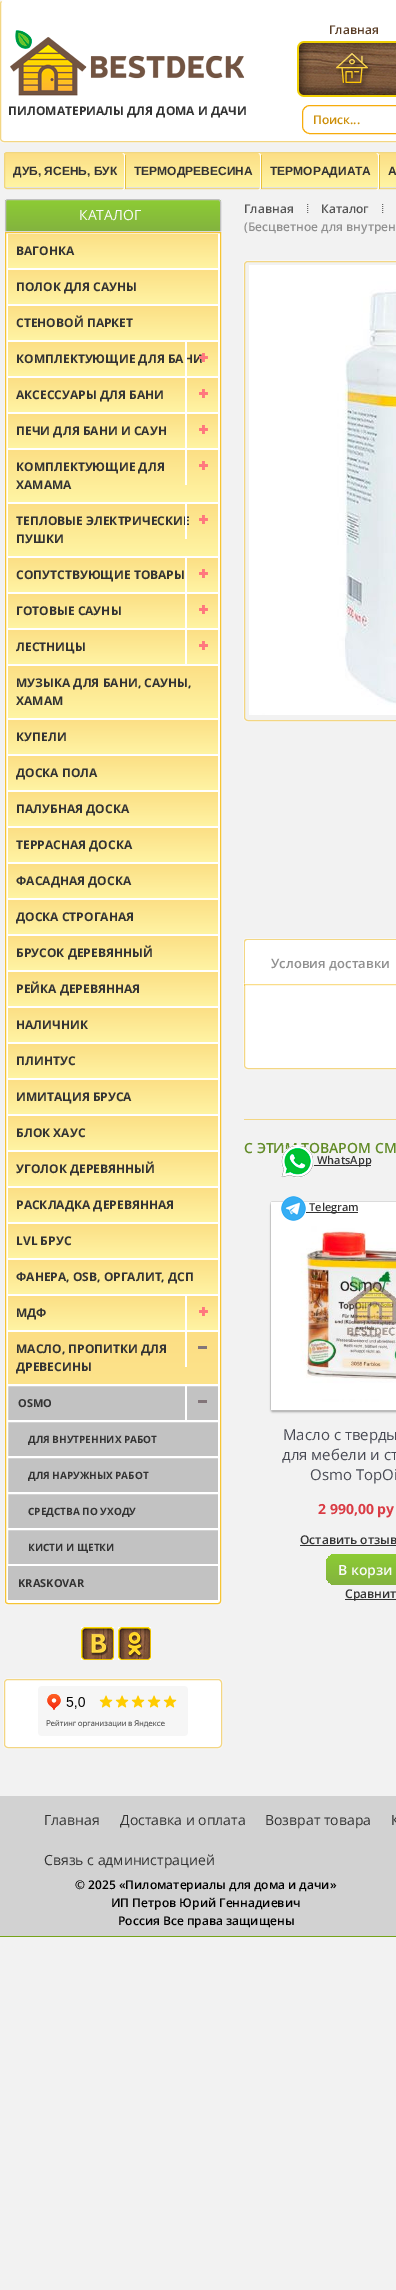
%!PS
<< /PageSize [396 2290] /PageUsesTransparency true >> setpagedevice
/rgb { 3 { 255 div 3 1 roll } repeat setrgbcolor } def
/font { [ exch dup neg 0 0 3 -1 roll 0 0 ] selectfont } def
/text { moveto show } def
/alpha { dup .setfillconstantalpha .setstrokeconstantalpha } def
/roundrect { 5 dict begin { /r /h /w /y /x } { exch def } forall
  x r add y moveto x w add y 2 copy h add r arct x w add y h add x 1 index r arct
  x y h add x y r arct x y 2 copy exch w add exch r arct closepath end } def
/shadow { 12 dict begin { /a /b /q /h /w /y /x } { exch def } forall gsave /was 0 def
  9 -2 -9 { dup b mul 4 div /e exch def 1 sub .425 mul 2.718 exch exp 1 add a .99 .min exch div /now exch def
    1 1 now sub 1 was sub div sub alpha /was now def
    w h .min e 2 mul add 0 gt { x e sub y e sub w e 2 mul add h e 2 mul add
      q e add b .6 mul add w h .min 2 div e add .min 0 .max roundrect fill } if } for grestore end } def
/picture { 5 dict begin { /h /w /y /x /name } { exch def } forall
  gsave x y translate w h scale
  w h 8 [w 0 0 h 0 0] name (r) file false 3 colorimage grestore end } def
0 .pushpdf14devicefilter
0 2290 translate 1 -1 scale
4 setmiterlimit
242 242 242 rgb
0 0 396 2290 rectfill
247 247 247 rgb
-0.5 -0.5 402 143 4.5 roundrect stroke
255 255 255 rgb
1 1 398 140 3 roundrect fill
1.5 1.5 moveto 2.5 -1 rlineto 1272 0 rlineto 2.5 1 rlineto stroke
243 214 131 rgb
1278.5 1.5 moveto 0.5 0.5 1 1.5 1 2.5 rcurveto 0 134 rlineto 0 1 -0.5 2 -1 2.5 rcurveto -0.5 0.5 -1.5 1 -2.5 1 rcurveto -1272 0 rlineto -1 0 -2 -0.5 -2.5 -1 rcurveto -0.5 -0.5 -1 -1.5 -1 -2.5 rcurveto 0 -134 rlineto 0 -1 0.5 -2 1 -2.5 rcurveto stroke
(img_01.rgb) 297 41 99 56 picture
(img_02.rgb) 336 53 36 36 picture
(img_03.rgb) 10 30 235 66 picture
247 172 12 rgb
302.5 105.5 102 28 7.5 roundrect stroke
gsave
4 152 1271 37 3 roundrect clip newpath
gsave 4 153 moveto 392 0 rlineto 0 35 rlineto -392 0 rlineto closepath clip newpath
<< /ShadingType 2 /ColorSpace /DeviceRGB /Coords [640 188 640 153] /Extend [true true] /Function << /FunctionType 2 /Domain [0 1] /C0 [1 0.961 0.647] /C1 [0.988 0.871 0.518] /N 1 >> >> shfill grestore
grestore
225 225 225 rgb
5 187 moveto 2 1 rlineto 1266 0 rlineto 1 -2 rlineto 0 -32 rlineto -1 -1 rlineto 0 27 rlineto 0 1 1 7 -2 7 rcurveto closepath fill
240 214 128 rgb
4.5 152.5 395 36 2.5 roundrect stroke
255 255 255 rgb
122 190 moveto 4.5 0 3 -5 3 -8 rcurveto 0 -21 rlineto 0 -3 1.5 -8 -3 -8 rcurveto 1 0 2 1 2 3 rcurveto 0 31 rlineto 0 2 -1 3 -2 3 rcurveto closepath fill
231 192 60 rgb
125 155 1 34 rectfill
255 255 255 rgb
258 190 moveto 4.5 0 3 -5 3 -8 rcurveto 0 -21 rlineto 0 -3 1.5 -8 -3 -8 rcurveto 1 0 2 1 2 3 rcurveto 0 31 rlineto 0 2 -1 3 -2 3 rcurveto closepath fill
231 192 60 rgb
261 155 1 34 rectfill
255 255 255 rgb
376 190 moveto 4.5 0 3 -5 3 -8 rcurveto 0 -21 rlineto 0 -3 1.5 -8 -3 -8 rcurveto 1 0 2 1 2 3 rcurveto 0 31 rlineto 0 2 -1 3 -2 3 rcurveto closepath fill
231 192 60 rgb
379 155 1 34 rectfill
255 255 255 rgb
5 199 216 1405 rectfill
239 239 239 rgb
221 199 1 1405 rectfill
4 199 1 1405 rectfill
gsave
8 199 moveto 210 0 rlineto 1.5 0 3 1.5 3 3 rcurveto 0 30 rlineto -216 0 rlineto 0 -30 rlineto 0 -1.5 1.5 -3 3 -3 rcurveto closepath clip newpath
gsave 5 200 moveto 216 0 rlineto 0 31 rlineto -216 0 rlineto closepath clip newpath
<< /ShadingType 2 /ColorSpace /DeviceRGB /Coords [113 231 113 200] /Extend [true true] /Function << /FunctionType 2 /Domain [0 1] /C0 [0.514 0.702 0.247] /C1 [0.553 0.8 0.204] /N 1 >> >> shfill grestore
grestore
192 192 192 rgb
8 199.5 moveto 210 0 rlineto 1.5 0 2.5 1 2.5 2.5 rcurveto 0 29.5 rlineto -215 0 rlineto 0 -29.5 rlineto 0 -1.5 1 -2.5 2.5 -2.5 rcurveto closepath stroke
0.38 alpha
255 255 255 rgb
4.5 231.5 moveto 217 0 rlineto 0 1369.5 rlineto 0 2 -1.5 3.5 -3.5 3.5 rcurveto -210 0 rlineto -2 0 -3.5 -1.5 -3.5 -3.5 rcurveto closepath stroke
1 alpha
246 196 51 rgb
5.5 232.5 moveto 215 0 rlineto 0 1368.5 rlineto 0 1.5 -1 2.5 -2.5 2.5 rcurveto -210 0 rlineto -1.5 0 -2.5 -1 -2.5 -2.5 rcurveto closepath stroke
gsave 8 234 moveto 210 0 rlineto 0 34 rlineto -210 0 rlineto closepath clip newpath
<< /ShadingType 2 /ColorSpace /DeviceRGB /Coords [113 269 113 233] /Extend [true true] /Function << /FunctionType 2 /Domain [0 1] /C0 [1 0.961 0.647] /C1 [0.988 0.871 0.518] /N 1 >> >> shfill grestore
gsave 8 270 moveto 210 0 rlineto 0 34 rlineto -210 0 rlineto closepath clip newpath
<< /ShadingType 2 /ColorSpace /DeviceRGB /Coords [113 305 113 269] /Extend [true true] /Function << /FunctionType 2 /Domain [0 1] /C0 [1 0.961 0.647] /C1 [0.988 0.871 0.518] /N 1 >> >> shfill grestore
gsave 8 306 moveto 210 0 rlineto 0 34 rlineto -210 0 rlineto closepath clip newpath
<< /ShadingType 2 /ColorSpace /DeviceRGB /Coords [113 341 113 305] /Extend [true true] /Function << /FunctionType 2 /Domain [0 1] /C0 [1 0.961 0.647] /C1 [0.988 0.871 0.518] /N 1 >> >> shfill grestore
gsave 8 342 moveto 210 0 rlineto 0 34 rlineto -210 0 rlineto closepath clip newpath
<< /ShadingType 2 /ColorSpace /DeviceRGB /Coords [113 377 113 341] /Extend [true true] /Function << /FunctionType 2 /Domain [0 1] /C0 [1 0.961 0.647] /C1 [0.988 0.871 0.518] /N 1 >> >> shfill grestore
gsave 8 378 moveto 210 0 rlineto 0 34 rlineto -210 0 rlineto closepath clip newpath
<< /ShadingType 2 /ColorSpace /DeviceRGB /Coords [113 413 113 377] /Extend [true true] /Function << /FunctionType 2 /Domain [0 1] /C0 [1 0.961 0.647] /C1 [0.988 0.871 0.518] /N 1 >> >> shfill grestore
(img_05.rgb) 199 389 9 9 picture
255 255 255 rgb
185 377 2 36 rectfill
gsave 8 414 moveto 210 0 rlineto 0 34 rlineto -210 0 rlineto closepath clip newpath
<< /ShadingType 2 /ColorSpace /DeviceRGB /Coords [113 449 113 413] /Extend [true true] /Function << /FunctionType 2 /Domain [0 1] /C0 [1 0.961 0.647] /C1 [0.988 0.871 0.518] /N 1 >> >> shfill grestore
(img_05.rgb) 199 425 9 9 picture
185 413 2 36 rectfill
gsave 8 450 moveto 210 0 rlineto 0 52 rlineto -210 0 rlineto closepath clip newpath
<< /ShadingType 2 /ColorSpace /DeviceRGB /Coords [113 503 113 449] /Extend [true true] /Function << /FunctionType 2 /Domain [0 1] /C0 [1 0.961 0.647] /C1 [0.988 0.871 0.518] /N 1 >> >> shfill grestore
(img_06.rgb) 199 461 9 9 picture
185 449 2 36 rectfill
gsave 8 504 moveto 210 0 rlineto 0 52 rlineto -210 0 rlineto closepath clip newpath
<< /ShadingType 2 /ColorSpace /DeviceRGB /Coords [113 557 113 503] /Extend [true true] /Function << /FunctionType 2 /Domain [0 1] /C0 [1 0.961 0.647] /C1 [0.988 0.871 0.518] /N 1 >> >> shfill grestore
(img_06.rgb) 199 515 9 9 picture
gsave 8 558 moveto 210 0 rlineto 0 34 rlineto -210 0 rlineto closepath clip newpath
<< /ShadingType 2 /ColorSpace /DeviceRGB /Coords [113 593 113 557] /Extend [true true] /Function << /FunctionType 2 /Domain [0 1] /C0 [1 0.961 0.647] /C1 [0.988 0.871 0.518] /N 1 >> >> shfill grestore
(img_05.rgb) 199 569 9 9 picture
185 557 2 36 rectfill
gsave 8 594 moveto 210 0 rlineto 0 34 rlineto -210 0 rlineto closepath clip newpath
<< /ShadingType 2 /ColorSpace /DeviceRGB /Coords [113 629 113 593] /Extend [true true] /Function << /FunctionType 2 /Domain [0 1] /C0 [1 0.961 0.647] /C1 [0.988 0.871 0.518] /N 1 >> >> shfill grestore
(img_05.rgb) 199 605 9 9 picture
185 593 2 36 rectfill
gsave 8 630 moveto 210 0 rlineto 0 34 rlineto -210 0 rlineto closepath clip newpath
<< /ShadingType 2 /ColorSpace /DeviceRGB /Coords [113 665 113 629] /Extend [true true] /Function << /FunctionType 2 /Domain [0 1] /C0 [1 0.961 0.647] /C1 [0.988 0.871 0.518] /N 1 >> >> shfill grestore
(img_05.rgb) 199 641 9 9 picture
185 629 2 36 rectfill
gsave 8 666 moveto 210 0 rlineto 0 52 rlineto -210 0 rlineto closepath clip newpath
<< /ShadingType 2 /ColorSpace /DeviceRGB /Coords [113 719 113 665] /Extend [true true] /Function << /FunctionType 2 /Domain [0 1] /C0 [1 0.961 0.647] /C1 [0.988 0.871 0.518] /N 1 >> >> shfill grestore
gsave 8 720 moveto 210 0 rlineto 0 34 rlineto -210 0 rlineto closepath clip newpath
<< /ShadingType 2 /ColorSpace /DeviceRGB /Coords [113 755 113 719] /Extend [true true] /Function << /FunctionType 2 /Domain [0 1] /C0 [1 0.961 0.647] /C1 [0.988 0.871 0.518] /N 1 >> >> shfill grestore
gsave 8 756 moveto 210 0 rlineto 0 34 rlineto -210 0 rlineto closepath clip newpath
<< /ShadingType 2 /ColorSpace /DeviceRGB /Coords [113 791 113 755] /Extend [true true] /Function << /FunctionType 2 /Domain [0 1] /C0 [1 0.961 0.647] /C1 [0.988 0.871 0.518] /N 1 >> >> shfill grestore
gsave 8 792 moveto 210 0 rlineto 0 34 rlineto -210 0 rlineto closepath clip newpath
<< /ShadingType 2 /ColorSpace /DeviceRGB /Coords [113 827 113 791] /Extend [true true] /Function << /FunctionType 2 /Domain [0 1] /C0 [1 0.961 0.647] /C1 [0.988 0.871 0.518] /N 1 >> >> shfill grestore
gsave 8 828 moveto 210 0 rlineto 0 34 rlineto -210 0 rlineto closepath clip newpath
<< /ShadingType 2 /ColorSpace /DeviceRGB /Coords [113 863 113 827] /Extend [true true] /Function << /FunctionType 2 /Domain [0 1] /C0 [1 0.961 0.647] /C1 [0.988 0.871 0.518] /N 1 >> >> shfill grestore
gsave 8 864 moveto 210 0 rlineto 0 34 rlineto -210 0 rlineto closepath clip newpath
<< /ShadingType 2 /ColorSpace /DeviceRGB /Coords [113 899 113 863] /Extend [true true] /Function << /FunctionType 2 /Domain [0 1] /C0 [1 0.961 0.647] /C1 [0.988 0.871 0.518] /N 1 >> >> shfill grestore
gsave 8 900 moveto 210 0 rlineto 0 34 rlineto -210 0 rlineto closepath clip newpath
<< /ShadingType 2 /ColorSpace /DeviceRGB /Coords [113 935 113 899] /Extend [true true] /Function << /FunctionType 2 /Domain [0 1] /C0 [1 0.961 0.647] /C1 [0.988 0.871 0.518] /N 1 >> >> shfill grestore
gsave 8 936 moveto 210 0 rlineto 0 34 rlineto -210 0 rlineto closepath clip newpath
<< /ShadingType 2 /ColorSpace /DeviceRGB /Coords [113 971 113 935] /Extend [true true] /Function << /FunctionType 2 /Domain [0 1] /C0 [1 0.961 0.647] /C1 [0.988 0.871 0.518] /N 1 >> >> shfill grestore
gsave 8 972 moveto 210 0 rlineto 0 34 rlineto -210 0 rlineto closepath clip newpath
<< /ShadingType 2 /ColorSpace /DeviceRGB /Coords [113 1007 113 971] /Extend [true true] /Function << /FunctionType 2 /Domain [0 1] /C0 [1 0.961 0.647] /C1 [0.988 0.871 0.518] /N 1 >> >> shfill grestore
gsave 8 1008 moveto 210 0 rlineto 0 34 rlineto -210 0 rlineto closepath clip newpath
<< /ShadingType 2 /ColorSpace /DeviceRGB /Coords [113 1043 113 1007] /Extend [true true] /Function << /FunctionType 2 /Domain [0 1] /C0 [1 0.961 0.647] /C1 [0.988 0.871 0.518] /N 1 >> >> shfill grestore
gsave 8 1044 moveto 210 0 rlineto 0 34 rlineto -210 0 rlineto closepath clip newpath
<< /ShadingType 2 /ColorSpace /DeviceRGB /Coords [113 1079 113 1043] /Extend [true true] /Function << /FunctionType 2 /Domain [0 1] /C0 [1 0.961 0.647] /C1 [0.988 0.871 0.518] /N 1 >> >> shfill grestore
gsave 8 1080 moveto 210 0 rlineto 0 34 rlineto -210 0 rlineto closepath clip newpath
<< /ShadingType 2 /ColorSpace /DeviceRGB /Coords [113 1115 113 1079] /Extend [true true] /Function << /FunctionType 2 /Domain [0 1] /C0 [1 0.961 0.647] /C1 [0.988 0.871 0.518] /N 1 >> >> shfill grestore
gsave 8 1116 moveto 210 0 rlineto 0 34 rlineto -210 0 rlineto closepath clip newpath
<< /ShadingType 2 /ColorSpace /DeviceRGB /Coords [113 1151 113 1115] /Extend [true true] /Function << /FunctionType 2 /Domain [0 1] /C0 [1 0.961 0.647] /C1 [0.988 0.871 0.518] /N 1 >> >> shfill grestore
gsave 8 1152 moveto 210 0 rlineto 0 34 rlineto -210 0 rlineto closepath clip newpath
<< /ShadingType 2 /ColorSpace /DeviceRGB /Coords [113 1187 113 1151] /Extend [true true] /Function << /FunctionType 2 /Domain [0 1] /C0 [1 0.961 0.647] /C1 [0.988 0.871 0.518] /N 1 >> >> shfill grestore
gsave 8 1188 moveto 210 0 rlineto 0 34 rlineto -210 0 rlineto closepath clip newpath
<< /ShadingType 2 /ColorSpace /DeviceRGB /Coords [113 1223 113 1187] /Extend [true true] /Function << /FunctionType 2 /Domain [0 1] /C0 [1 0.961 0.647] /C1 [0.988 0.871 0.518] /N 1 >> >> shfill grestore
gsave 8 1224 moveto 210 0 rlineto 0 34 rlineto -210 0 rlineto closepath clip newpath
<< /ShadingType 2 /ColorSpace /DeviceRGB /Coords [113 1259 113 1223] /Extend [true true] /Function << /FunctionType 2 /Domain [0 1] /C0 [1 0.961 0.647] /C1 [0.988 0.871 0.518] /N 1 >> >> shfill grestore
gsave 8 1260 moveto 210 0 rlineto 0 34 rlineto -210 0 rlineto closepath clip newpath
<< /ShadingType 2 /ColorSpace /DeviceRGB /Coords [113 1295 113 1259] /Extend [true true] /Function << /FunctionType 2 /Domain [0 1] /C0 [1 0.961 0.647] /C1 [0.988 0.871 0.518] /N 1 >> >> shfill grestore
gsave 8 1296 moveto 210 0 rlineto 0 34 rlineto -210 0 rlineto closepath clip newpath
<< /ShadingType 2 /ColorSpace /DeviceRGB /Coords [113 1331 113 1295] /Extend [true true] /Function << /FunctionType 2 /Domain [0 1] /C0 [1 0.961 0.647] /C1 [0.988 0.871 0.518] /N 1 >> >> shfill grestore
(img_05.rgb) 199 1307 9 9 picture
185 1295 2 36 rectfill
gsave 8 1332 moveto 210 0 rlineto 0 52 rlineto -210 0 rlineto closepath clip newpath
<< /ShadingType 2 /ColorSpace /DeviceRGB /Coords [113 1601 113 1331] /Extend [true true] /Function << /FunctionType 2 /Domain [0 1] /C0 [1 0.961 0.647] /C1 [0.988 0.871 0.518] /N 1 >> >> shfill grestore
130 117 121 rgb
198 1346 9 3 rectfill
255 255 255 rgb
185 1331 2 36 rectfill
194 194 194 rgb
8 1386 210 178 rectfill
255 255 255 rgb
7.5 1385.5 211 35 rectstroke
130 117 121 rgb
198 1400 9 3 rectfill
255 255 255 rgb
185 1385 2 36 rectfill
7.5 1421.5 211 35 rectstroke
7.5 1457.5 211 35 rectstroke
7.5 1493.5 211 35 rectstroke
7.5 1529.5 211 35 rectstroke
194 194 194 rgb
8 1566 210 34 rectfill
(img_07.rgb) 81 1627 33 33 picture
(img_08.rgb) 91 1633 17 23 picture
(img_07.rgb) 118 1627 33 33 picture
(img_09.rgb) 127 1631 16 27 picture
247 247 247 rgb
3.5 1678.5 219 70 4.5 roundrect stroke
255 255 255 rgb
4.5 1679.5 217 68 3.5 roundrect gsave fill grestore
243 214 131 rgb
stroke
(img_10.rgb) 38 1686 150 50 picture
102 102 102 rgb
[1 1] 0 setdash
307.5 204 moveto 0 9 rlineto stroke
382.5 204 moveto 0 9 rlineto stroke
247 247 247 rgb
[] 0 setdash
243.5 260.5 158 461 4.5 roundrect stroke
243 214 131 rgb
244.5 261.5 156 459 3.5 roundrect stroke
(img_11.rgb) 249 265 147 450 picture
247 247 247 rgb
247 938.5 moveto 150 0 rlineto 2 0 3.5 1.5 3.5 3.5 rcurveto 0 44.5 rlineto -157 0 rlineto 0 -44.5 rlineto 0 -2 1.5 -3.5 3.5 -3.5 rcurveto closepath stroke
255 255 255 rgb
247 940 moveto 149 0 rlineto 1 0 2 1 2 2 rcurveto 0 44 rlineto -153 0 rlineto 0 -44 rlineto 0 -1 1 -2 2 -2 rcurveto closepath fill
0.46 alpha
244 181 0 rgb
247 939 moveto 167 0 rlineto 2 0 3 1 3 3 rcurveto 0 44 rlineto -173 0 rlineto 0 -44 rlineto 0 -2 1 -3 3 -3 rcurveto closepath 247 940 moveto 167 0 rlineto 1 0 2 1 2 2 rcurveto 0 44 rlineto -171 0 rlineto 0 -44 rlineto 0 -1 1 -2 2 -2 rcurveto closepath eofill
0.38 alpha
255 255 255 rgb
243.5 983.5 moveto 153.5 0 rlineto 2.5 0 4.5 2 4.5 4.5 rcurveto 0 77 rlineto 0 2.5 -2 4.5 -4.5 4.5 rcurveto -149 0 rlineto -2.5 0 -4.5 -2 -4.5 -4.5 rcurveto closepath stroke
1 alpha
245 985 moveto 151 0 rlineto 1.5 0 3 1.5 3 3 rcurveto 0 77 rlineto 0 1.5 -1.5 3 -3 3 rcurveto -148 0 rlineto -1.5 0 -3 -1.5 -3 -3 rcurveto closepath fill
0.46 alpha
244 181 0 rgb
244.5 984.5 moveto 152.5 0 rlineto 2 0 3.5 1.5 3.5 3.5 rcurveto 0 77 rlineto 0 2 -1.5 3.5 -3.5 3.5 rcurveto -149 0 rlineto -2 0 -3.5 -1.5 -3.5 -3.5 rcurveto closepath stroke
1 alpha
243 214 131 rgb
244 1119 152 1 rectfill
0 0 0 rgb
271 1204 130 208 2 1 0.1 shadow
271 1204 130 208 2 1 0.2 shadow
0.09 alpha
270.5 1201.5 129 209 2.5 roundrect stroke
1 alpha
255 255 255 rgb
8 setlinewidth
275 1206 moveto 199 0 rlineto 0 200 rlineto -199 0 rlineto closepath stroke
(img_12.rgb) 279 1210 117 192 picture
51 51 51 rgb
300 1545 96 1 rectfill
gsave 326 1554 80 31 10 roundrect clip newpath
<< /ShadingType 2 /ColorSpace /DeviceRGB /Coords [374 1585 374 1554] /Extend [true true] /Function << /FunctionType 2 /Domain [0 1] /C0 [0.514 0.702 0.247] /C1 [0.553 0.8 0.204] /N 1 >> >> shfill grestore
345 1599 51 1 rectfill
314 1165 57 1 rectfill
(img_14.rgb) 281 1196 25 25 picture
306 1212 52 1 rectfill
210 210 210 rgb
0 1796 396 140 rectfill
117 163 24 rgb
0 1936 396 1 rectfill
/OpenSans-SemiBold 12 font
89 60 37 rgb
(Главная) 329 34 text
/OpenSans-Bold 12 font
51 51 51 rgb
(ПИЛОМАТЕРИАЛЫ ДЛЯ ДОМА И ДАЧИ) 8 115 text
/OpenSans-SemiBold 12 font
205 143 10 rgb
(Поиск...) 313 124 text
/LiberationSans-Bold 12 font
51 51 51 rgb
(ДУБ, ЯСЕНЬ, БУК) 13 175 text
(ТЕРМОДРЕВЕСИНА) 134 175 text
(ТЕРМОРАДИАТА) 270 175 text
(А) 388 175 text
/OpenSans-Regular 14 font
250 250 250 rgb
(КАТАЛОГ) 79 220 text
/OpenSans-Bold 12 font
51 51 51 rgb
(ВАГОНКА) 16 255 text
(ПОЛОК ДЛЯ САУНЫ) 16 291 text
(СТЕНОВОЙ ПАРКЕТ) 16 327 text
(КОМПЛЕКТУЮЩИЕ ДЛЯ БАНИ) 16 363 text
255 255 255 rgb
185 341 2 36 rectfill
(img_04.rgb) 199 353 9 9 picture
51 51 51 rgb
(АКСЕССУАРЫ ДЛЯ БАНИ) 16 399 text
(ПЕЧИ ДЛЯ БАНИ И САУН) 16 435 text
(КОМПЛЕКТУЮЩИЕ ДЛЯ) 16 471 text
(ХАМАМА) 16 489 text
(ТЕПЛОВЫЕ ЭЛЕКТРИЧЕСКИЕ) 16 525 text
(ПУШКИ) 16 543 text
255 255 255 rgb
185 503 2 36 rectfill
51 51 51 rgb
(СОПУТСТВУЮЩИЕ ТОВАРЫ) 16 579 text
(ГОТОВЫЕ САУНЫ) 16 615 text
(ЛЕСТНИЦЫ) 16 651 text
(МУЗЫКА ДЛЯ БАНИ, САУНЫ,) 16 687 text
(ХАМАМ) 16 705 text
(КУПЕЛИ) 16 741 text
(ДОСКА ПОЛА) 16 777 text
(ПАЛУБНАЯ ДОСКА) 16 813 text
(ТЕРРАСНАЯ ДОСКА) 16 849 text
(ФАСАДНАЯ ДОСКА) 16 885 text
(ДОСКА СТРОГАНАЯ) 16 921 text
(БРУСОК ДЕРЕВЯННЫЙ) 16 957 text
(РЕЙКА ДЕРЕВЯННАЯ) 16 993 text
(НАЛИЧНИК) 16 1029 text
(ПЛИНТУС) 16 1065 text
(ИМИТАЦИЯ БРУСА) 16 1101 text
(БЛОК ХАУС) 16 1137 text
(УГОЛОК ДЕРЕВЯННЫЙ) 16 1173 text
(РАСКЛАДКА ДЕРЕВЯННАЯ) 16 1209 text
(LVL БРУС) 16 1245 text
(ФАНЕРА, OSB, ОРГАЛИТ, ДСП) 16 1281 text
(МДФ) 16 1317 text
(МАСЛО, ПРОПИТКИ ДЛЯ) 16 1353 text
(ДРЕВЕСИНЫ) 16 1371 text
/OpenSans-Bold 11 font
(OSMO) 18 1407 text
/OpenSans-Bold 10 font
(ДЛЯ ВНУТРЕННИХ РАБОТ) 28 1443 text
(ДЛЯ НАРУЖНЫХ РАБОТ) 28 1479 text
(СРЕДСТВА ПО УХОДУ) 28 1515 text
(КИСТИ И ЩЕТКИ) 28 1551 text
/OpenSans-Bold 11 font
(KRASKOVAR) 18 1587 text
/OpenSans-SemiBold 12 font
85 85 85 rgb
(Главная) 244 213 text
(Каталог) 321 213 text
144 144 144 rgb
(\(Бесцветное для внутрен) 244 231 text
/OpenSans-SemiBold 13 font
(Условия доставки) 271 968 text
/OpenSans-SemiBold 14 font
97 139 39 rgb
(С ЭТИМ ТОВАРОМ СМ) 244 1153 text
/OpenSans-Regular 15 font
72 74 84 rgb
(Масло с тверды) 283 1440 text
(для мебели и ст) 282 1460 text
(Osmo TopOi) 310 1480 text
/OpenSans-Bold 14 font
218 59 68 rgb
(2 990,00 ру) 318 1514 text
/OpenSans-SemiBold 12 font
51 51 51 rgb
(Оставить отзыв) 300 1544 text
/OpenSans-SemiBold 14 font
250 250 250 rgb
(В корзи) 338 1575 text
/OpenSans-SemiBold 12 font
51 51 51 rgb
(Сравнит) 345 1598 text
(img_13.rgb) 281 1145 33 33 picture
/OpenSans-SemiBold 11 font
(WhatsApp) 317 1164 text
(Telegram) 309 1211 text
/OpenSans-Regular 14 font
(Главная) 44 1825 text
(Доставка и оплата) 120 1825 text
(Возврат товара) 265 1825 text
(К) 391 1825 text
(Связь с администрацией) 44 1865 text
/OpenSans-SemiBold 12 font
0 0 0 rgb
(© 2025 «Пиломатериалы для дома и дачи») 75 1889 text
(ИП Петров Юрий Геннадиевич) 111 1907 text
(Россия Все права защищены) 118 1925 text
.poppdf14devicefilter showpage
